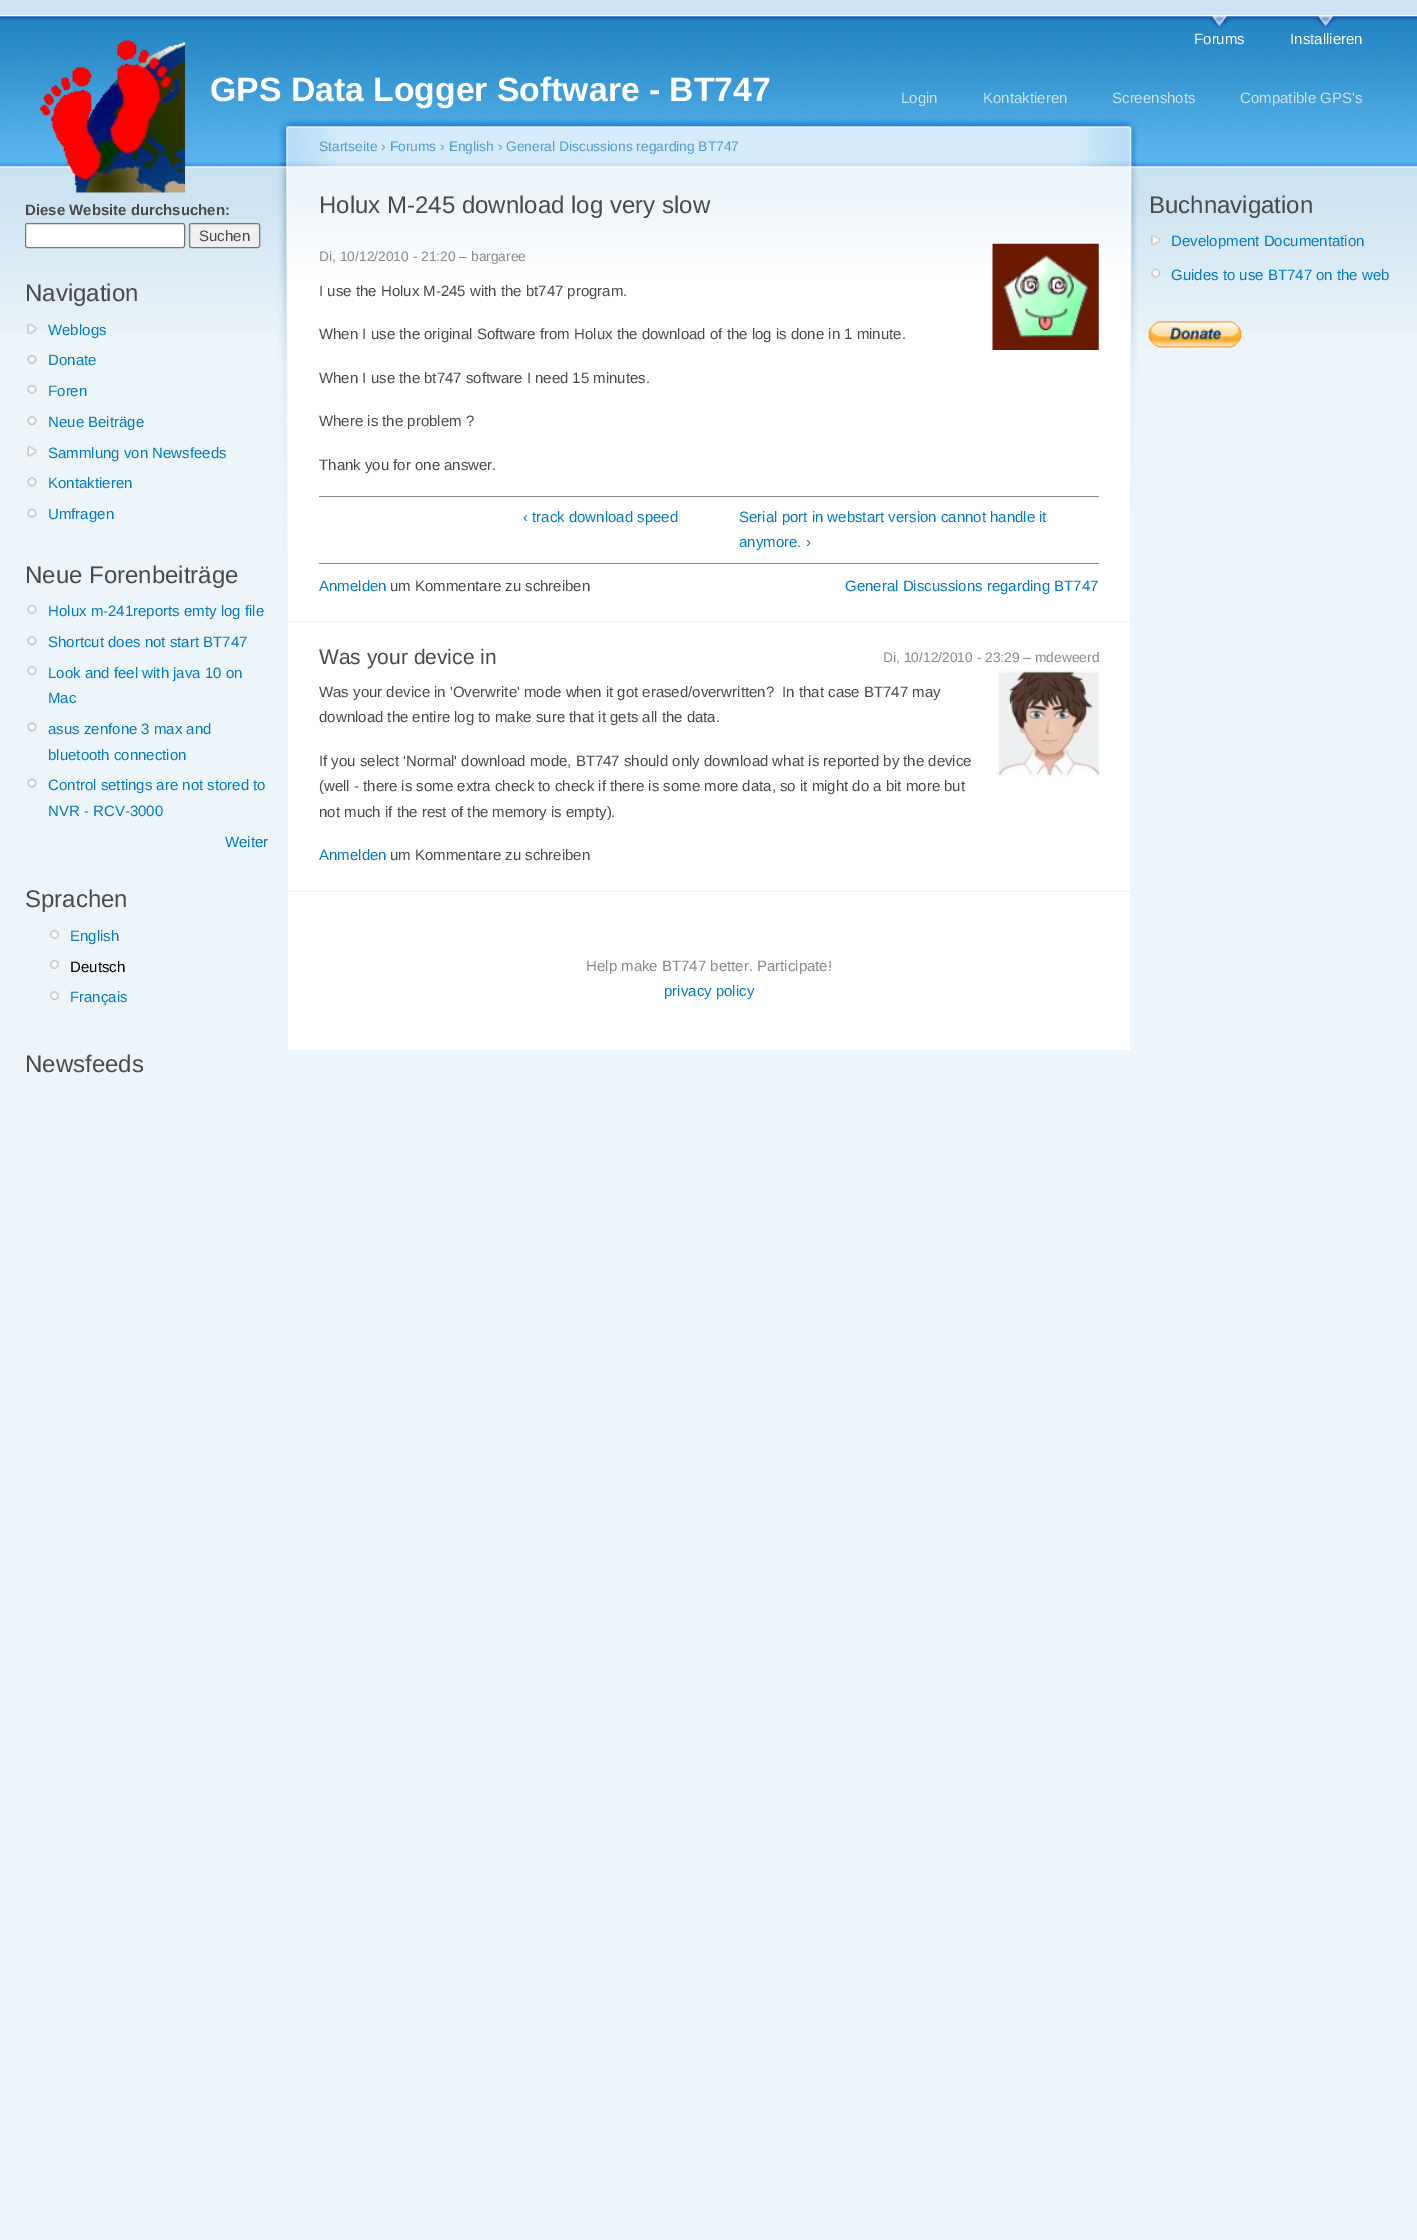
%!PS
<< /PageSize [1417 2240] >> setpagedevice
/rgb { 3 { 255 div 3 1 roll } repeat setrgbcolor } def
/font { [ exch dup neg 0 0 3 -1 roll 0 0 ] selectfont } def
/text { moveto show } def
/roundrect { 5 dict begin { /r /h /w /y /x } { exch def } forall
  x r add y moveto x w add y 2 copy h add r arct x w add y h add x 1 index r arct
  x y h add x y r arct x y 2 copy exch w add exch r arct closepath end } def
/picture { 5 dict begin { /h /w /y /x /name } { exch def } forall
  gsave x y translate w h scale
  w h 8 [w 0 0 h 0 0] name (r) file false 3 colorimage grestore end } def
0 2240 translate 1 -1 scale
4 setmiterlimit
237 245 250 rgb
0 0 1417 2240 rectfill
205 227 241 rgb
0 0 1417 15 rectfill
(img_01.rgb) 0 15 1417 319 picture
(img_02.rgb) 1209 16 21 13 picture
(img_03.rgb) 1315 16 21 13 picture
(img_04.rgb) 39 39 146 154 picture
255 255 255 rgb
25.5 223.5 159 24 2 roundrect gsave fill grestore
118 118 118 rgb
stroke
239 239 239 rgb
189.5 223.5 70 24 2 roundrect gsave fill grestore
118 118 118 rgb
stroke
(img_05.rgb) 27 322 11 13 picture
(img_06.rgb) 27 355 10 9 picture
(img_06.rgb) 27 385 10 9 picture
(img_07.rgb) 27 416 10 10 picture
(img_08.rgb) 27 445 11 13 picture
(img_09.rgb) 27 477 10 10 picture
(img_10.rgb) 27 508 10 10 picture
(img_06.rgb) 27 605 10 9 picture
(img_07.rgb) 27 636 10 10 picture
(img_07.rgb) 27 666 10 10 picture
(img_09.rgb) 27 722 10 10 picture
(img_11.rgb) 27 778 10 10 picture
(img_12.rgb) 50 930 9 9 picture
(img_12.rgb) 50 960 9 9 picture
(img_13.rgb) 50 991 9 10 picture
255 255 255 rgb
288 365 842 685 rectfill
(img_14.rgb) 287 115 843 250 picture
(img_15.rgb) 1080 120 59 388 picture
(img_16.rgb) 277 120 60 435 picture
233 239 243 rgb
286 621 845 1 rectfill
(img_17.rgb) 992 243 107 107 picture
136 136 136 rgb
319 496 780 1 rectfill
319 563 780 1 rectfill
233 239 243 rgb
288 891 842 1 rectfill
(img_18.rgb) 993 670 106 107 picture
(img_19.rgb) 1151 234 10 12 picture
(img_20.rgb) 1151 268 10 10 picture
(img_21.rgb) 1148 321 94 27 picture
/LiberationSans-Regular 15 font
255 255 255 rgb
(Forums) 1194 44 text
(Installieren) 1290 44 text
/LiberationSans-Bold 33.75 font
(GPS Data Logger Software - BT747) 210 101 text
/LiberationSans-Regular 15 font
205 227 241 rgb
(Login) 901 103 text
(Kontaktieren) 983 103 text
(Screenshots) 1112 103 text
(Compatible GPS's) 1240 103 text
/LiberationSans-Bold 15 font
73 73 73 rgb
(Diese Website durchsuchen:) 25 215 text
/LiberationSans-Regular 15 font
(Suchen) 199 241 text
/LiberationSans-Regular 24 font
(Navigation) 25 301 text
/LiberationSans-Regular 15 font
2 122 198 rgb
(Weblogs) 48 335 text
(Donate) 48 365 text
(Foren) 48 396 text
(Neue Beiträge) 48 427 text
(Sammlung von Newsfeeds) 48 458 text
(Kontaktieren) 48 488 text
(Umfragen) 48 519 text
/LiberationSans-Regular 24 font
73 73 73 rgb
(Neue Forenbeiträge) 25 583 text
/LiberationSans-Regular 15 font
2 122 198 rgb
(Holux m-241reports emty log file) 48 616 text
(Shortcut does not start BT747) 48 647 text
(Look and feel with java 10 on) 48 678 text
(Mac) 48 703 text
(asus zenfone 3 max and) 48 734 text
(bluetooth connection) 48 760 text
(Control settings are not stored to) 48 790 text
(NVR - RCV-3000) 48 816 text
(Weiter) 225 847 text
/LiberationSans-Regular 24 font
73 73 73 rgb
(Sprachen) 25 907 text
/LiberationSans-Regular 15 font
2 122 198 rgb
(English) 70 941 text
0 0 0 rgb
(Deutsch) 70 972 text
2 122 198 rgb
(Français) 70 1002 text
/LiberationSans-Regular 24 font
73 73 73 rgb
(Newsfeeds) 25 1072 text
/LiberationSans-Regular 13.8 font
82 154 214 rgb
(Startseite › Forums › English › General Discussions regarding BT747) 319 151 text
/LiberationSans-Regular 24 font
73 73 73 rgb
(Holux M-245 download log very slow) 319 213 text
/LiberationSans-Regular 13.8 font
137 137 137 rgb
(Di, 10/12/2010 - 21:20 – bargaree) 319 261 text
/LiberationSans-Regular 15 font
73 73 73 rgb
(I use the Holux M-245 with the bt747 program.) 319 296 text
(When I use the original Software from Holux the download of the log is done in 1 minute.) 319 339 text
(When I use the bt747 software I need 15 minutes.) 319 383 text
(Where is the problem ?) 319 426 text
(Thank you for one answer.) 319 470 text
2 122 198 rgb
(‹ track download speed) 523 522 text
(Serial port in webstart version cannot handle it) 739 522 text
(anymore. ›) 739 547 text
(Anmelden) 319 591 text
73 73 73 rgb
(um Kommentare zu schreiben) 390 591 text
2 122 198 rgb
(General Discussions regarding BT747) 845 591 text
/LiberationSans-Regular 21 font
73 73 73 rgb
(Was your device in) 319 664 text
/LiberationSans-Regular 13.8 font
137 137 137 rgb
(Di, 10/12/2010 - 23:29 – mdeweerd) 883 662 text
/LiberationSans-Regular 15 font
73 73 73 rgb
(Was your device in 'Overwrite' mode when it got erased/overwritten?  In that case BT747 may) 319 697 text
(download the entire log to make sure that it gets all the data.) 319 722 text
(If you select 'Normal' download mode, BT747 should only download what is reported by the device) 319 766 text
(\(well - there is some extra check to check if there is some more data, so it might do a bit more but) 319 791 text
(not much if the rest of the memory is empty\).) 319 817 text
2 122 198 rgb
(Anmelden) 319 860 text
73 73 73 rgb
(um Kommentare zu schreiben) 390 860 text
137 137 137 rgb
(Help make BT747 better. Participate!) 586 971 text
2 122 198 rgb
(privacy policy) 664 996 text
/LiberationSans-Regular 24 font
73 73 73 rgb
(Buchnavigation) 1149 213 text
/LiberationSans-Regular 15 font
2 122 198 rgb
(Development Documentation) 1171 246 text
(Guides to use BT747 on the web) 1171 280 text
showpage
